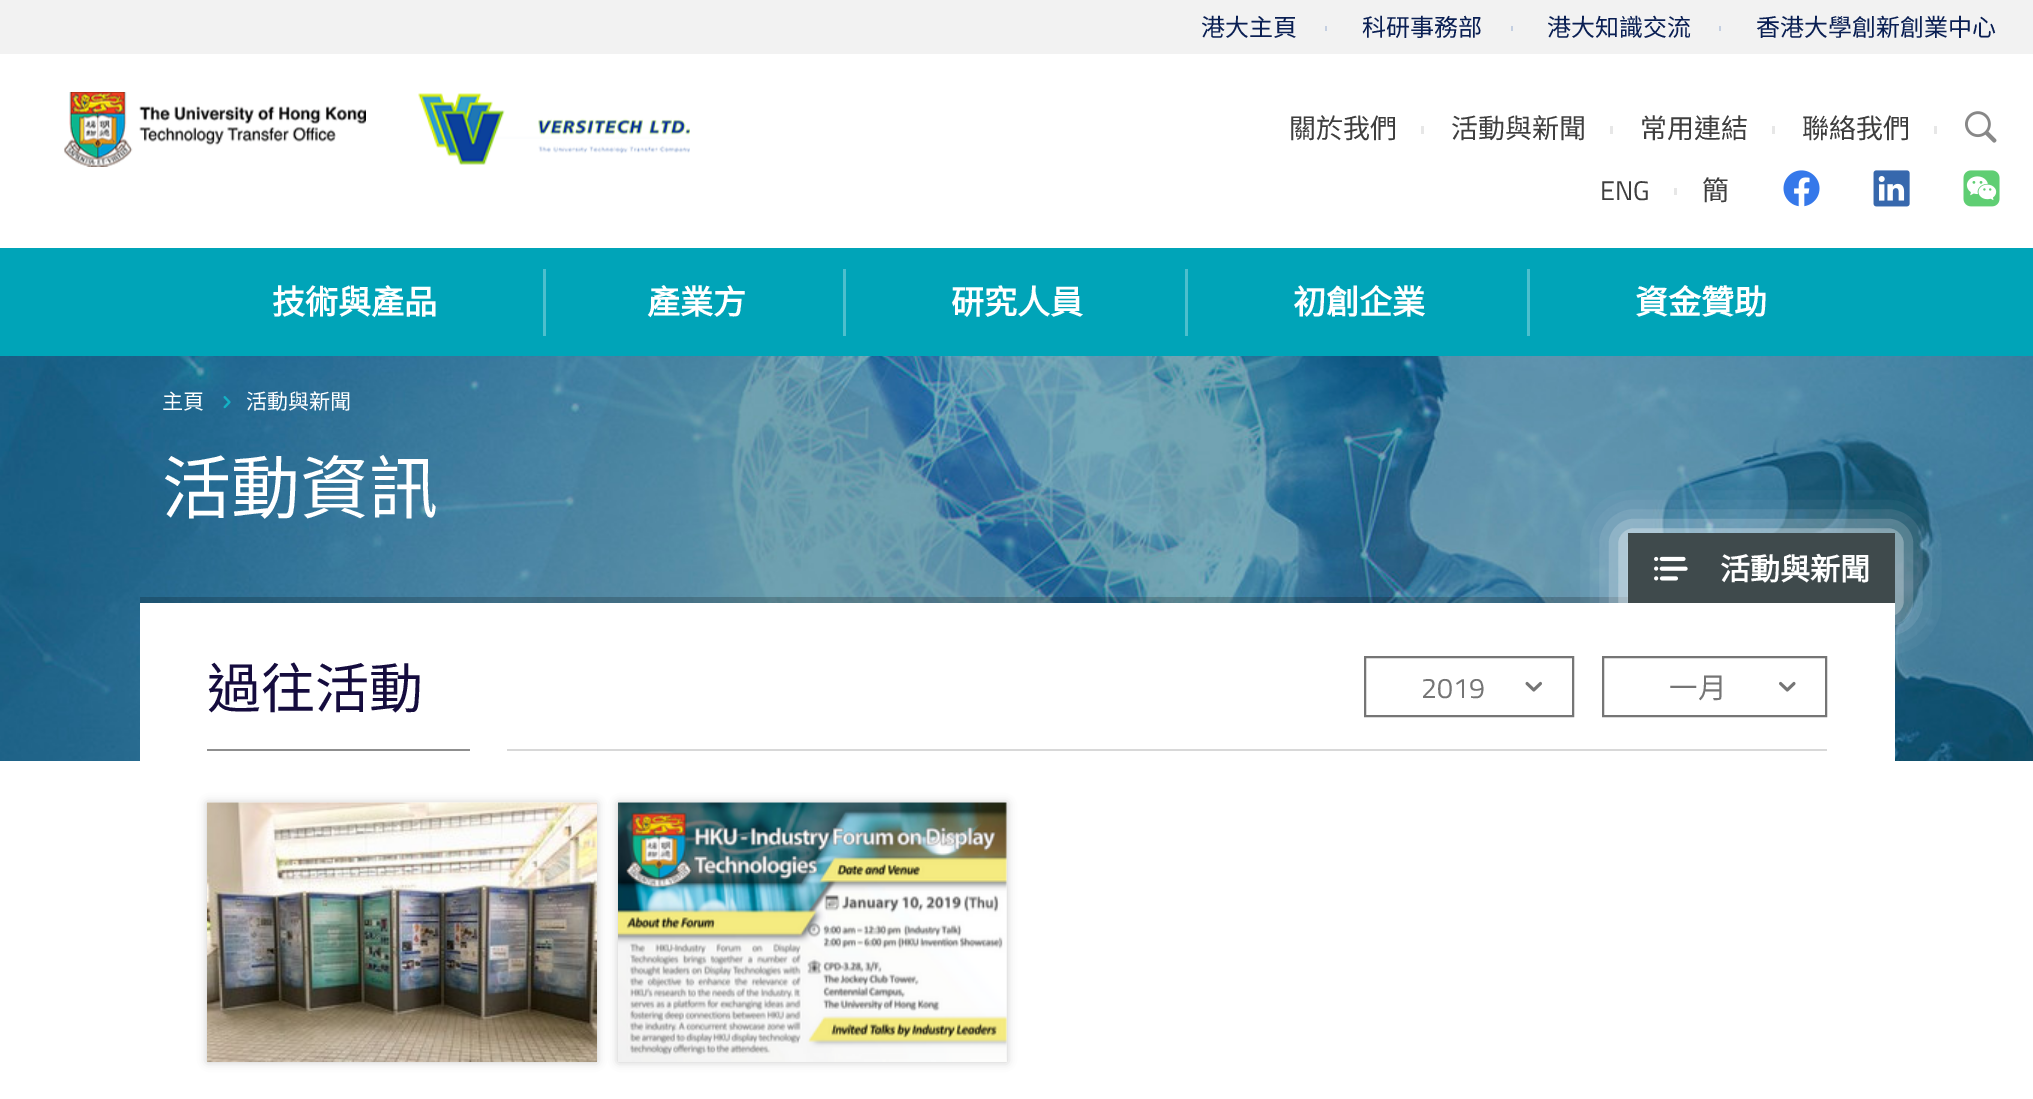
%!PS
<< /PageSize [2033 1099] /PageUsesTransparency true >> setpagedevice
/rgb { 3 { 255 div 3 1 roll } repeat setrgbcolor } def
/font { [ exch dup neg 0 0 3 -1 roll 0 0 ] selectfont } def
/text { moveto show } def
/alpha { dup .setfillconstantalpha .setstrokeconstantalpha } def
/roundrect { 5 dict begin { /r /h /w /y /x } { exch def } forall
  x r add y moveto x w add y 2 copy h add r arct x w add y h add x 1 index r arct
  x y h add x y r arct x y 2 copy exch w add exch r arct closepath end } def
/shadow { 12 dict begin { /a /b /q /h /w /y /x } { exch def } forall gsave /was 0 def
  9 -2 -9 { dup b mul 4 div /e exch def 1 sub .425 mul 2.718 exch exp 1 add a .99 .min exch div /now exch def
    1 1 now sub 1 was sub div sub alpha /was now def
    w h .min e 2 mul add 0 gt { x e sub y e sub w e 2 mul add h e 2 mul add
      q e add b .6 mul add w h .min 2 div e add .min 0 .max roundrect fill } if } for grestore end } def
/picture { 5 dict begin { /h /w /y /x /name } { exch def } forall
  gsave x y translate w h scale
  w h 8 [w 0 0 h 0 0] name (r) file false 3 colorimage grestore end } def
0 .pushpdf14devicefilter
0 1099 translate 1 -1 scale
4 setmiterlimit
255 255 255 rgb
0 0 2033 1099 rectfill
242 242 242 rgb
0 0 2033 54 rectfill
196 207 225 rgb
1325 26 2 5 rectfill
1511 26 2 5 rectfill
1719 26 2 5 rectfill
(img_01.rgb) 64 92 302 75 picture
(img_02.rgb) 418 93 272 72 picture
231 231 231 rgb
1421 126 3 8 rectfill
1610 126 3 8 rectfill
1772 126 3 8 rectfill
1934 126 3 8 rectfill
1674 188 3 7 rectfill
(img_03.rgb) 1783 170 37 37 picture
(img_04.rgb) 1873 170 37 37 picture
(img_05.rgb) 1963 170 37 37 picture
(img_06.rgb) 1965 111 32 32 picture
0 164 184 rgb
0 248 2033 108 rectfill
77 191 205 rgb
543 269 3 67 rectfill
843 269 3 67 rectfill
1185 269 3 67 rectfill
1527 269 3 67 rectfill
(img_07.rgb) 0 356 2033 405 picture
(img_08.rgb) 223 396 8 13 picture
255 255 255 rgb
140 603 1755 158 rectfill
0.2 alpha
0 0 0 rgb
140 597 1488 6 rectfill
1 alpha
117 117 117 rgb
2 setlinewidth
1365 657 208 59 rectstroke
1603 657 223 59 rectstroke
255 255 255 rgb
1623 533 276 79 0 19 1 shadow
63 74 76 rgb
1628 533 267 70 rectfill
(img_09.rgb) 1654 556 34 25 picture
(img_10.rgb) 1525 681 17 11 picture
(img_11.rgb) 1779 681 17 11 picture
143 143 143 rgb
207 749 263 2 rectfill
216 216 216 rgb
507 749 1320 2 rectfill
0 0 0 rgb
207 803 390 259 0 4.5 0.2 shadow
(img_12.rgb) 207 802 390 260 picture
618 803 389 259 0 4.5 0.2 shadow
(img_13.rgb) 618 802 389 260 picture
/NotoSansCJKHK-Regular 24 font
10 31 83 rgb
(港大主頁) 1201 36 text
(科研事務部) 1362 36 text
(港大知識交流) 1547 36 text
(香港大學創新創業中心) 1756 36 text
/NotoSansCJKHK-Regular 27 font
62 62 62 rgb
(關於我們) 1289 138 text
(活動與新聞) 1451 138 text
(常用連結) 1640 138 text
(聯絡我們) 1802 138 text
/TitilliumWeb-Regular 27 font
(ENG) 1600 200 text
/NotoSansCJKSC-Regular 27 font
(簡) 1702 200 text
/NotoSansCJKHK-Bold 33 font
255 255 255 rgb
(技術與產品) 272 314 text
(產業方) 647 314 text
(研究人員) 951 314 text
(初創企業) 1293 314 text
(資金贊助) 1635 314 text
/NotoSansCJKHK-Regular 21 font
(主頁) 162 409 text
(活動與新聞) 246 409 text
/NotoSansCJKHK-Regular 69 font
(活動資訊) 162 513 text
/NotoSansCJKHK-Bold 30 font
(活動與新聞) 1720 580 text
/NotoSansCJKHK-Regular 54 font
21 12 62 rgb
(過往活動) 207 708 text
/TitilliumWeb-Regular 28.5 font
117 117 117 rgb
(2019) 1421 698 text
/NotoSansCJKHK-Regular 28.5 font
(一月) 1669 698 text
.poppdf14devicefilter showpage
